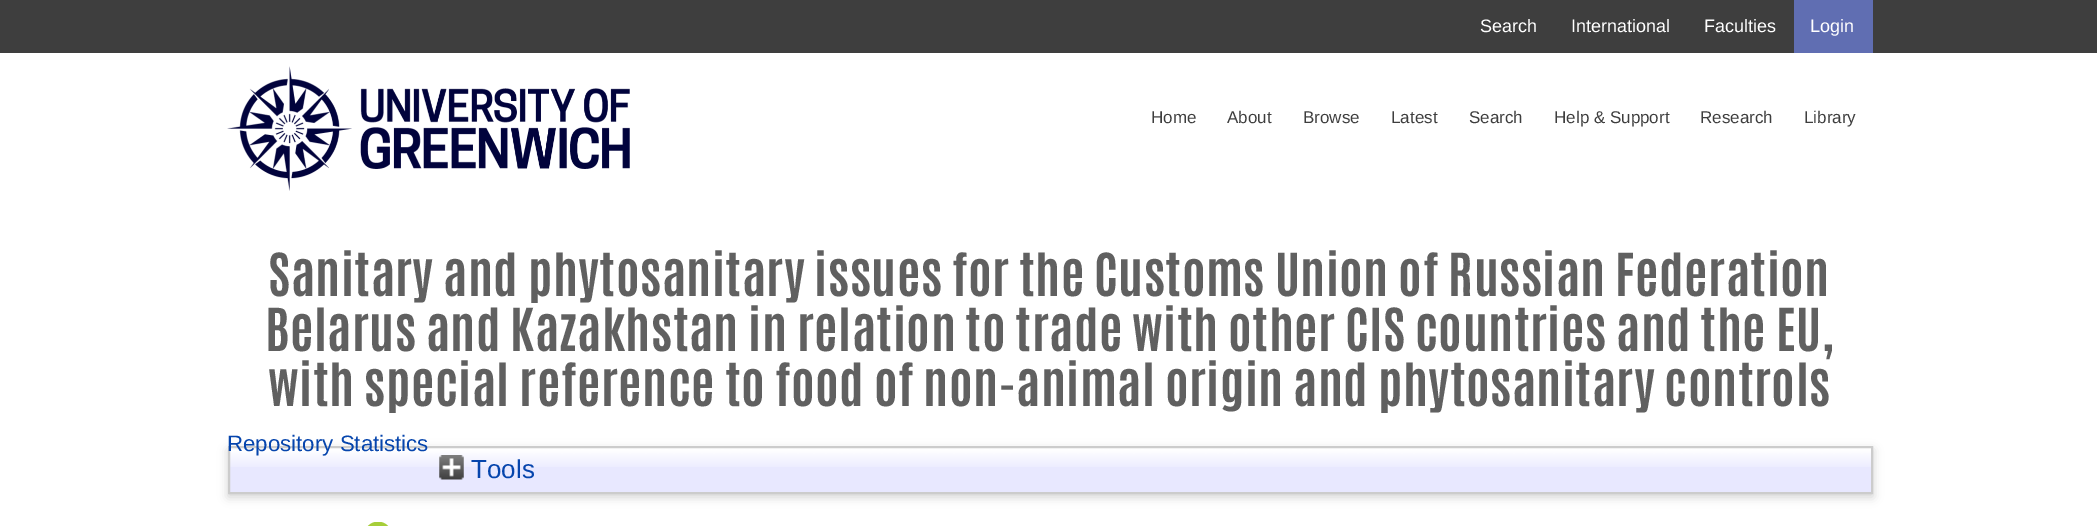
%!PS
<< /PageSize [2097 526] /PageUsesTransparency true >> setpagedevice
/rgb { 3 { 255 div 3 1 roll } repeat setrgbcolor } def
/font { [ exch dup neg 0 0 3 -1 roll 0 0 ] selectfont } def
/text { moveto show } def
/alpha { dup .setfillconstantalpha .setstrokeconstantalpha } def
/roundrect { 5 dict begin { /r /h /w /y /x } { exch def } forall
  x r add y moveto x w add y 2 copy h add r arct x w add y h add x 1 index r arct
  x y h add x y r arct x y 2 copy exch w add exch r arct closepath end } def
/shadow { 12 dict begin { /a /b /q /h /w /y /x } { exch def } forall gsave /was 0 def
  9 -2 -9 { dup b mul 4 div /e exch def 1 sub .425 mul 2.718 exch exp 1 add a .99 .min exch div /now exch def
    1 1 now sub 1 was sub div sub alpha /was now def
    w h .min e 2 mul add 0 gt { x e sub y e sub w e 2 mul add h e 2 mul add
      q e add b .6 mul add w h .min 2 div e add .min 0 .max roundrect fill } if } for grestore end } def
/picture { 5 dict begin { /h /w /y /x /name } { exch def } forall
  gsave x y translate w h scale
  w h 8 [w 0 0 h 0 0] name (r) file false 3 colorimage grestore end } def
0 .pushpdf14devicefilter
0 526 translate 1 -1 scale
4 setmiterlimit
255 255 255 rgb
0 0 2097 526 rectfill
62 62 62 rgb
0 0 2097 53 rectfill
96 110 178 rgb
1794 0 79 53 rectfill
(img_01.rgb) 227 66 403 125 picture
100 100 100 rgb
228 450 1645 47 0 5 0.3 shadow
232 232 255 rgb
230 449 1641 43 rectfill
(img_02.rgb) 230 448 1641 19 picture
204 204 204 rgb
2 setlinewidth
229 447 1643 46 rectstroke
(img_03.rgb) 439 455 25 25 picture
(img_04.rgb) 367 522 22 4 picture
/LiberationSans-Regular 18 font
255 255 255 rgb
(Search) 1480 32 text
(International) 1571 32 text
(Faculties) 1704 32 text
(Login) 1810 32 text
/LiberationSans-Regular 17 font
62 62 62 rgb
(Home) 1151 123 text
(About) 1227 123 text
(Browse) 1303 123 text
(Latest) 1391 123 text
(Search) 1469 123 text
(Help & Support) 1554 123 text
(Research) 1700 123 text
(Library) 1804 123 text
/Antonio-Bold 50.3 font
96 96 96 rgb
268 296 moveto 0.45 0 (Sanitary and phytosanitary issues for the Customs Union of Russian Federation) ashow
265 351 moveto 0.45 0 (Belarus and Kazakhstan in relation to trade with other CIS countries and the EU,) ashow
268 406 moveto 0.45 0 (with special reference to food of non-animal origin and phytosanitary controls) ashow
/LiberationSans-Regular 22.25 font
6 69 173 rgb
(Repository Statistics) 227 451 text
/LiberationSans-Regular 26 font
(Tools) 471 478 text
.poppdf14devicefilter showpage
